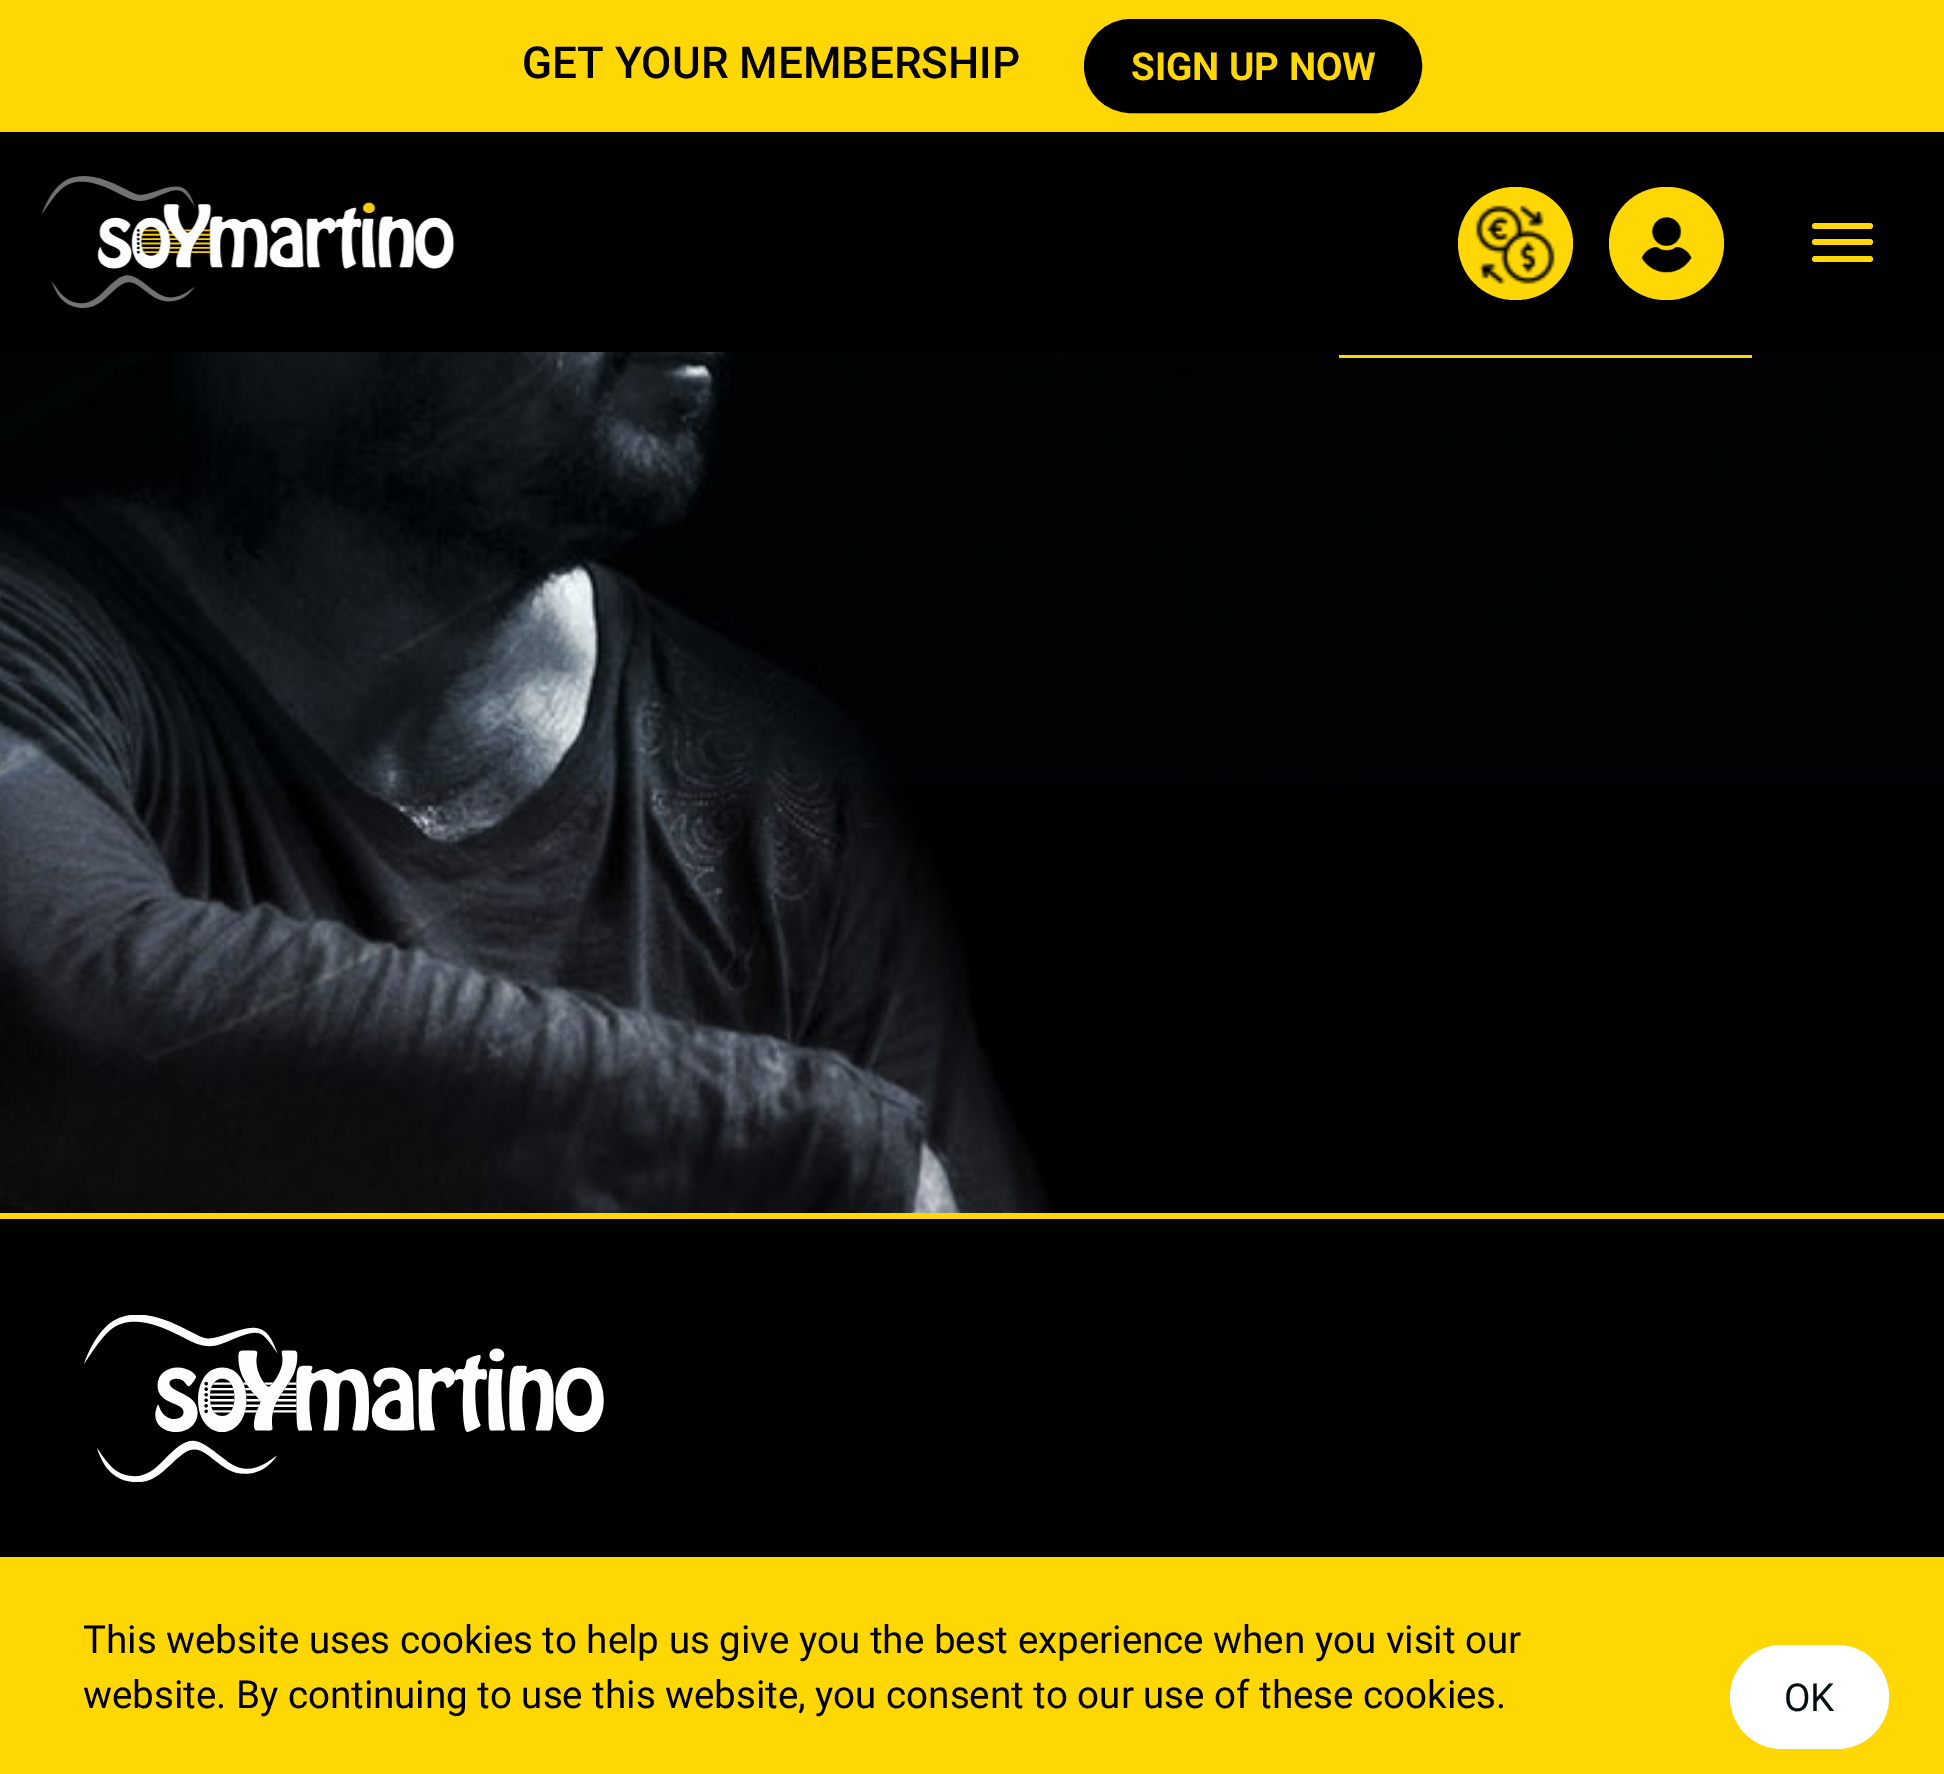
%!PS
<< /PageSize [1944 1774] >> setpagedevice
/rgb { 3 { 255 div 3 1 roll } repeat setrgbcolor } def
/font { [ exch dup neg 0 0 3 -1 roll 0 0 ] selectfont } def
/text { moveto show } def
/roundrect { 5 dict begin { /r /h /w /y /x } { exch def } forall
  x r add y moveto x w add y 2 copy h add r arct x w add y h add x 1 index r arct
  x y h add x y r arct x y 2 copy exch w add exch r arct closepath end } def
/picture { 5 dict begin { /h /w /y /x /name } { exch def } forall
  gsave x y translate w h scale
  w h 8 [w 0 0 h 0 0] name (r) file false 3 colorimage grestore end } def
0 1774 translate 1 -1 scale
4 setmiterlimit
255 255 255 rgb
0 0 1944 1774 rectfill
(img_01.rgb) 0 352 1944 861 picture
255 215 4 rgb
0 0 1944 132 rectfill
0 0 0 rgb
1087 22 332 88 44 roundrect gsave fill grestore
6 setlinewidth
stroke
0 132 1944 220 rectfill
(img_02.rgb) 41 176 414 132 picture
255 215 4 rgb
1812 223 61 6 3 roundrect fill
1812 239 61 6 3 roundrect fill
1812 256 61 6 3 roundrect fill
1458 187 115 113 56.5 roundrect fill
(img_03.rgb) 1475 205 80 80 picture
1609 187 115 113 56.5 roundrect fill
(img_04.rgb) 1641 217 51 56 picture
1339 355 413 3 rectfill
0 0 0 rgb
0 1219 1944 338 rectfill
255 215 4 rgb
0 1213 1944 6 rectfill
(img_05.rgb) 84 1315 520 167 picture
0 1557 1944 217 rectfill
255 255 255 rgb
1730 1645 159 104 52 roundrect fill
/Roboto-Medium 44 font
0 0 0 rgb
(GET YOUR MEMBERSHIP) 522 78 text
/Roboto-Bold 38.5 font
255 215 4 rgb
(SIGN UP NOW) 1131 80 text
/Roboto-Regular 38.5 font
0 0 0 rgb
(This website uses cookies to help us give you the best experience when you visit our) 83 1653 text
(website. By continuing to use this website, you consent to our use of these cookies.) 83 1708 text
0 14 15 rgb
(OK) 1784 1711 text
showpage
